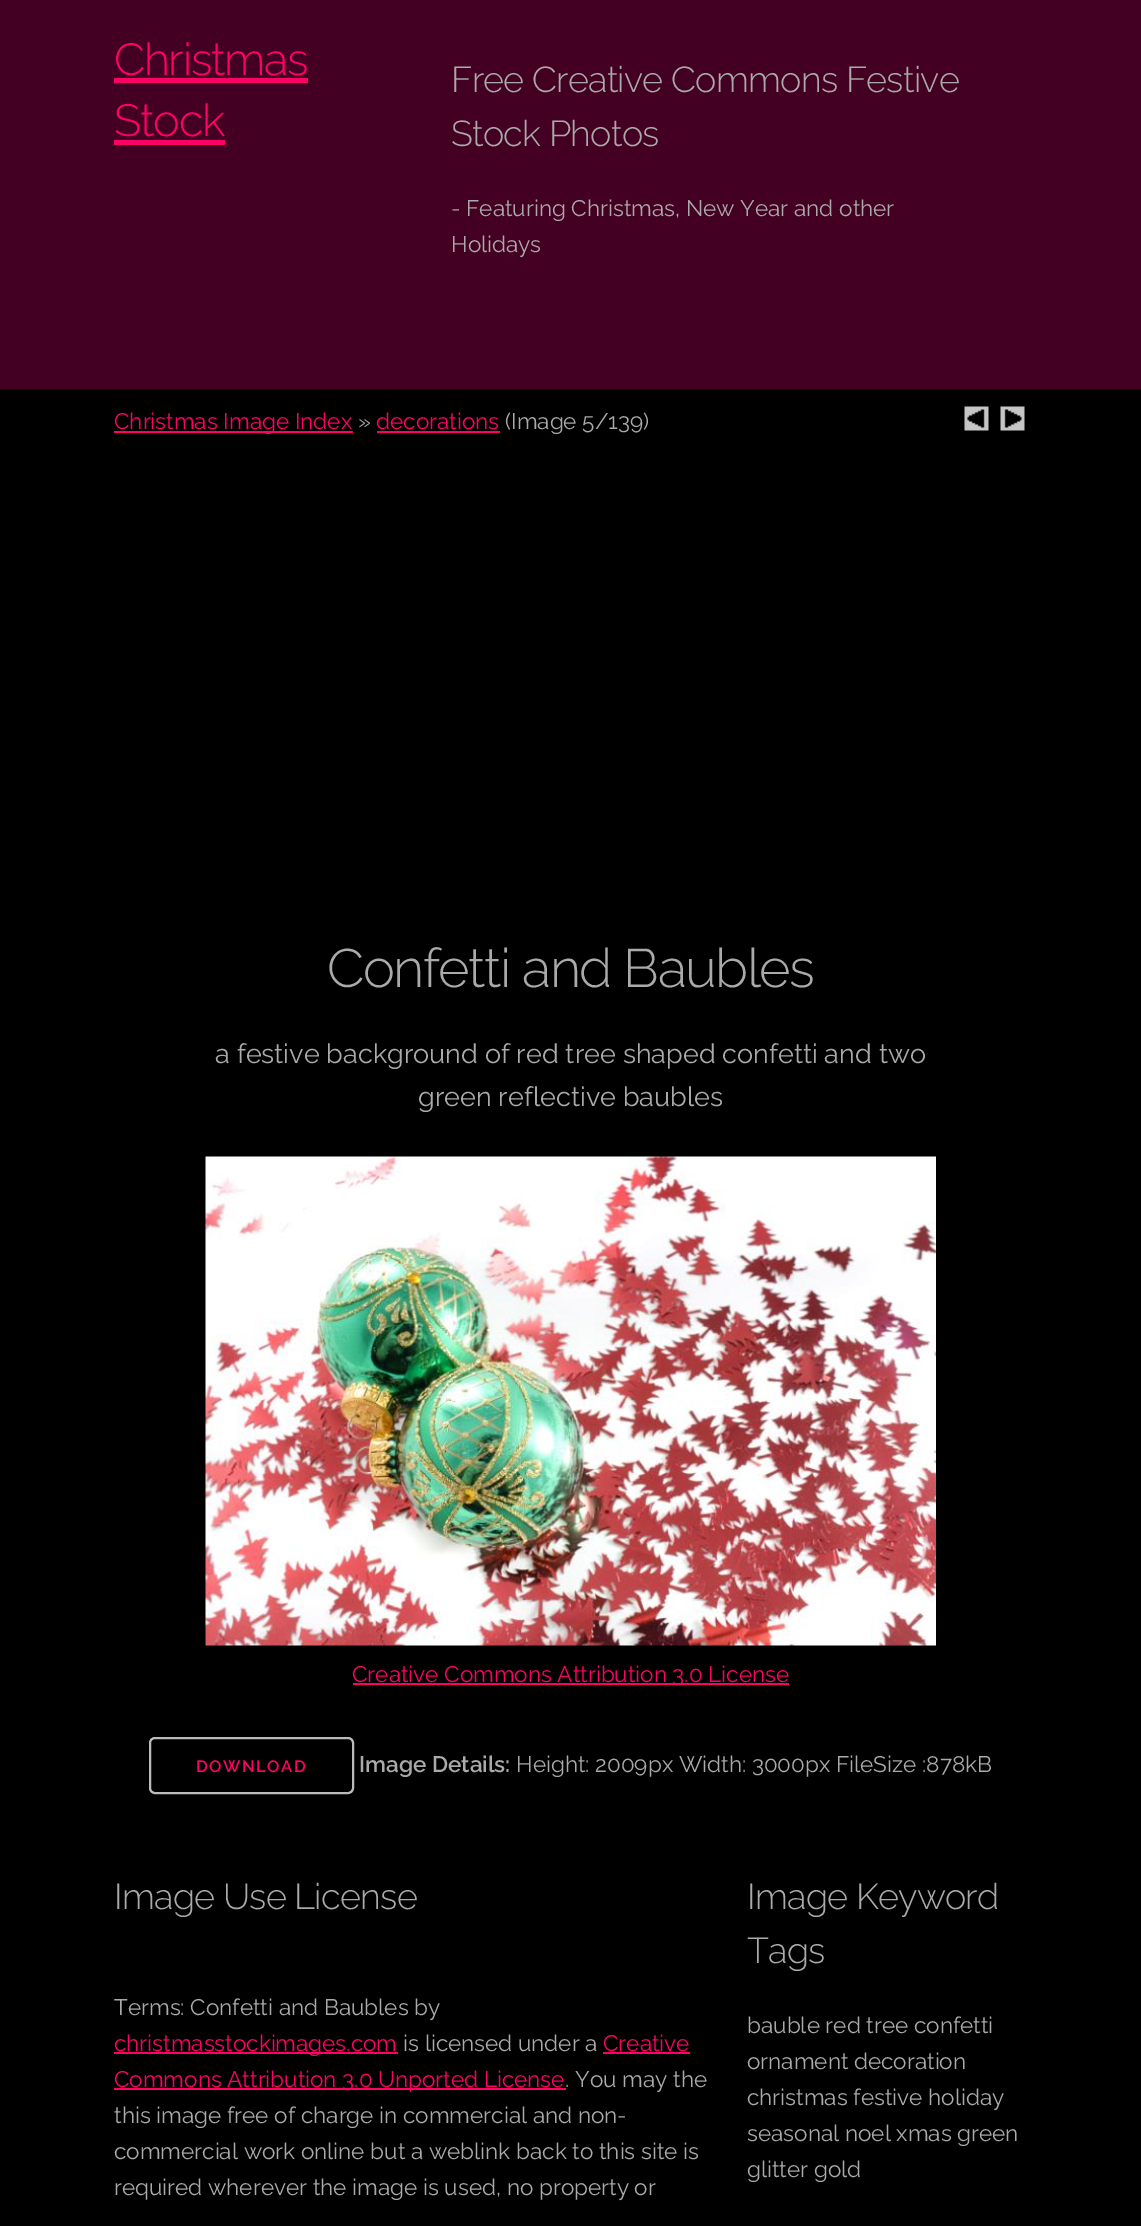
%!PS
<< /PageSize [1141 2226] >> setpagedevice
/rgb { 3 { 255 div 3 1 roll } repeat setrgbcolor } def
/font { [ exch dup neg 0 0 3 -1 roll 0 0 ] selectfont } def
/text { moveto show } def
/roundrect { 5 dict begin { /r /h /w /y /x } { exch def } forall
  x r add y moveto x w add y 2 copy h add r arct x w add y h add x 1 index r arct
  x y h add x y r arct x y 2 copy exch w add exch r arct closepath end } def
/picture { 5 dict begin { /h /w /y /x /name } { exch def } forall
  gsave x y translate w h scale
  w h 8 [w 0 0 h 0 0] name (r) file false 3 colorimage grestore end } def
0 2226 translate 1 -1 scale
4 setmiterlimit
0 0 0 rgb
0 0 1141 2226 rectfill
68 0 34 rgb
0 0 1141 389 rectfill
255 0 102 rgb
114 78 194 5 rectfill
114 140 111 5 rectfill
114 431 239 2 rectfill
377 431 123 2 rectfill
(img_01.rgb) 964 406 25 25 picture
(img_02.rgb) 1000 406 25 25 picture
(img_03.rgb) 205 1156 731 490 picture
353 1683 436 2 rectfill
187 187 187 rgb
2 setlinewidth
150 1738 203 55 5 roundrect stroke
255 0 102 rgb
114 2052 284 2 rectfill
603 2052 87 2 rectfill
114 2088 452 2 rectfill
/Raleway-Light 45 font
114 75 moveto -1.25 0 (Christmas) ashow
114 136 moveto -1.25 0 (Stock) ashow
/Raleway-Light 36 font
170 170 170 rgb
451 92 moveto -0.75 0 (Free Creative Commons Festive) ashow
451 146 moveto -0.75 0 (Stock Photos) ashow
/Raleway-Regular 22.5 font
(- Featuring Christmas, New Year and other) 451 216 text
(Holidays) 451 252 text
255 0 102 rgb
(Christmas Image Index) 114 429 text
170 170 170 rgb
(») 358 429 text
255 0 102 rgb
(decorations) 376 429 text
170 170 170 rgb
(\(Image 5/139\)) 505 429 text
/Raleway-Light 54 font
327 987 moveto -1.5 0 (Confetti and Baubles) ashow
/Raleway-Regular 27 font
(a festive background of red tree shaped confetti and two) 215 1063 text
(green reflective baubles) 418 1106 text
/Raleway-Regular 22.5 font
255 0 102 rgb
(Creative Commons Attribution 3.0 License) 352 1682 text
/Raleway-SemiBold 16.5 font
196 1772 moveto 1.5 0 (DOWNLOAD) ashow
/Raleway-SemiBold 22.5 font
170 170 170 rgb
(Image Details:) 359 1772 text
/Raleway-Regular 22.5 font
(Height: 2009px Width: 3000px FileSize :878kB) 516 1772 text
/Raleway-Light 36 font
114 1909 moveto -0.75 0 (Image Use License) ashow
/Raleway-Regular 22.5 font
(Terms: Confetti and Baubles by) 114 2015 text
255 0 102 rgb
(christmasstockimages.com) 114 2051 text
170 170 170 rgb
(is licensed under a) 403 2051 text
255 0 102 rgb
(Creative) 603 2051 text
(Commons Attribution 3.0 Unported License) 114 2087 text
170 170 170 rgb
(. You may the) 565 2087 text
(this image free of charge in commercial and non-) 114 2123 text
(commercial work online but a weblink back to this site is) 114 2159 text
(required wherever the image is used, no property or) 114 2195 text
/Raleway-Light 36 font
747 1909 moveto -0.75 0 (Image Keyword) ashow
747 1963 moveto -0.75 0 (Tags) ashow
/Raleway-Regular 22.5 font
(bauble red tree confetti) 747 2033 text
(ornament decoration) 747 2069 text
(christmas festive holiday) 747 2105 text
(seasonal noel xmas green) 747 2141 text
(glitter gold) 747 2177 text
showpage
